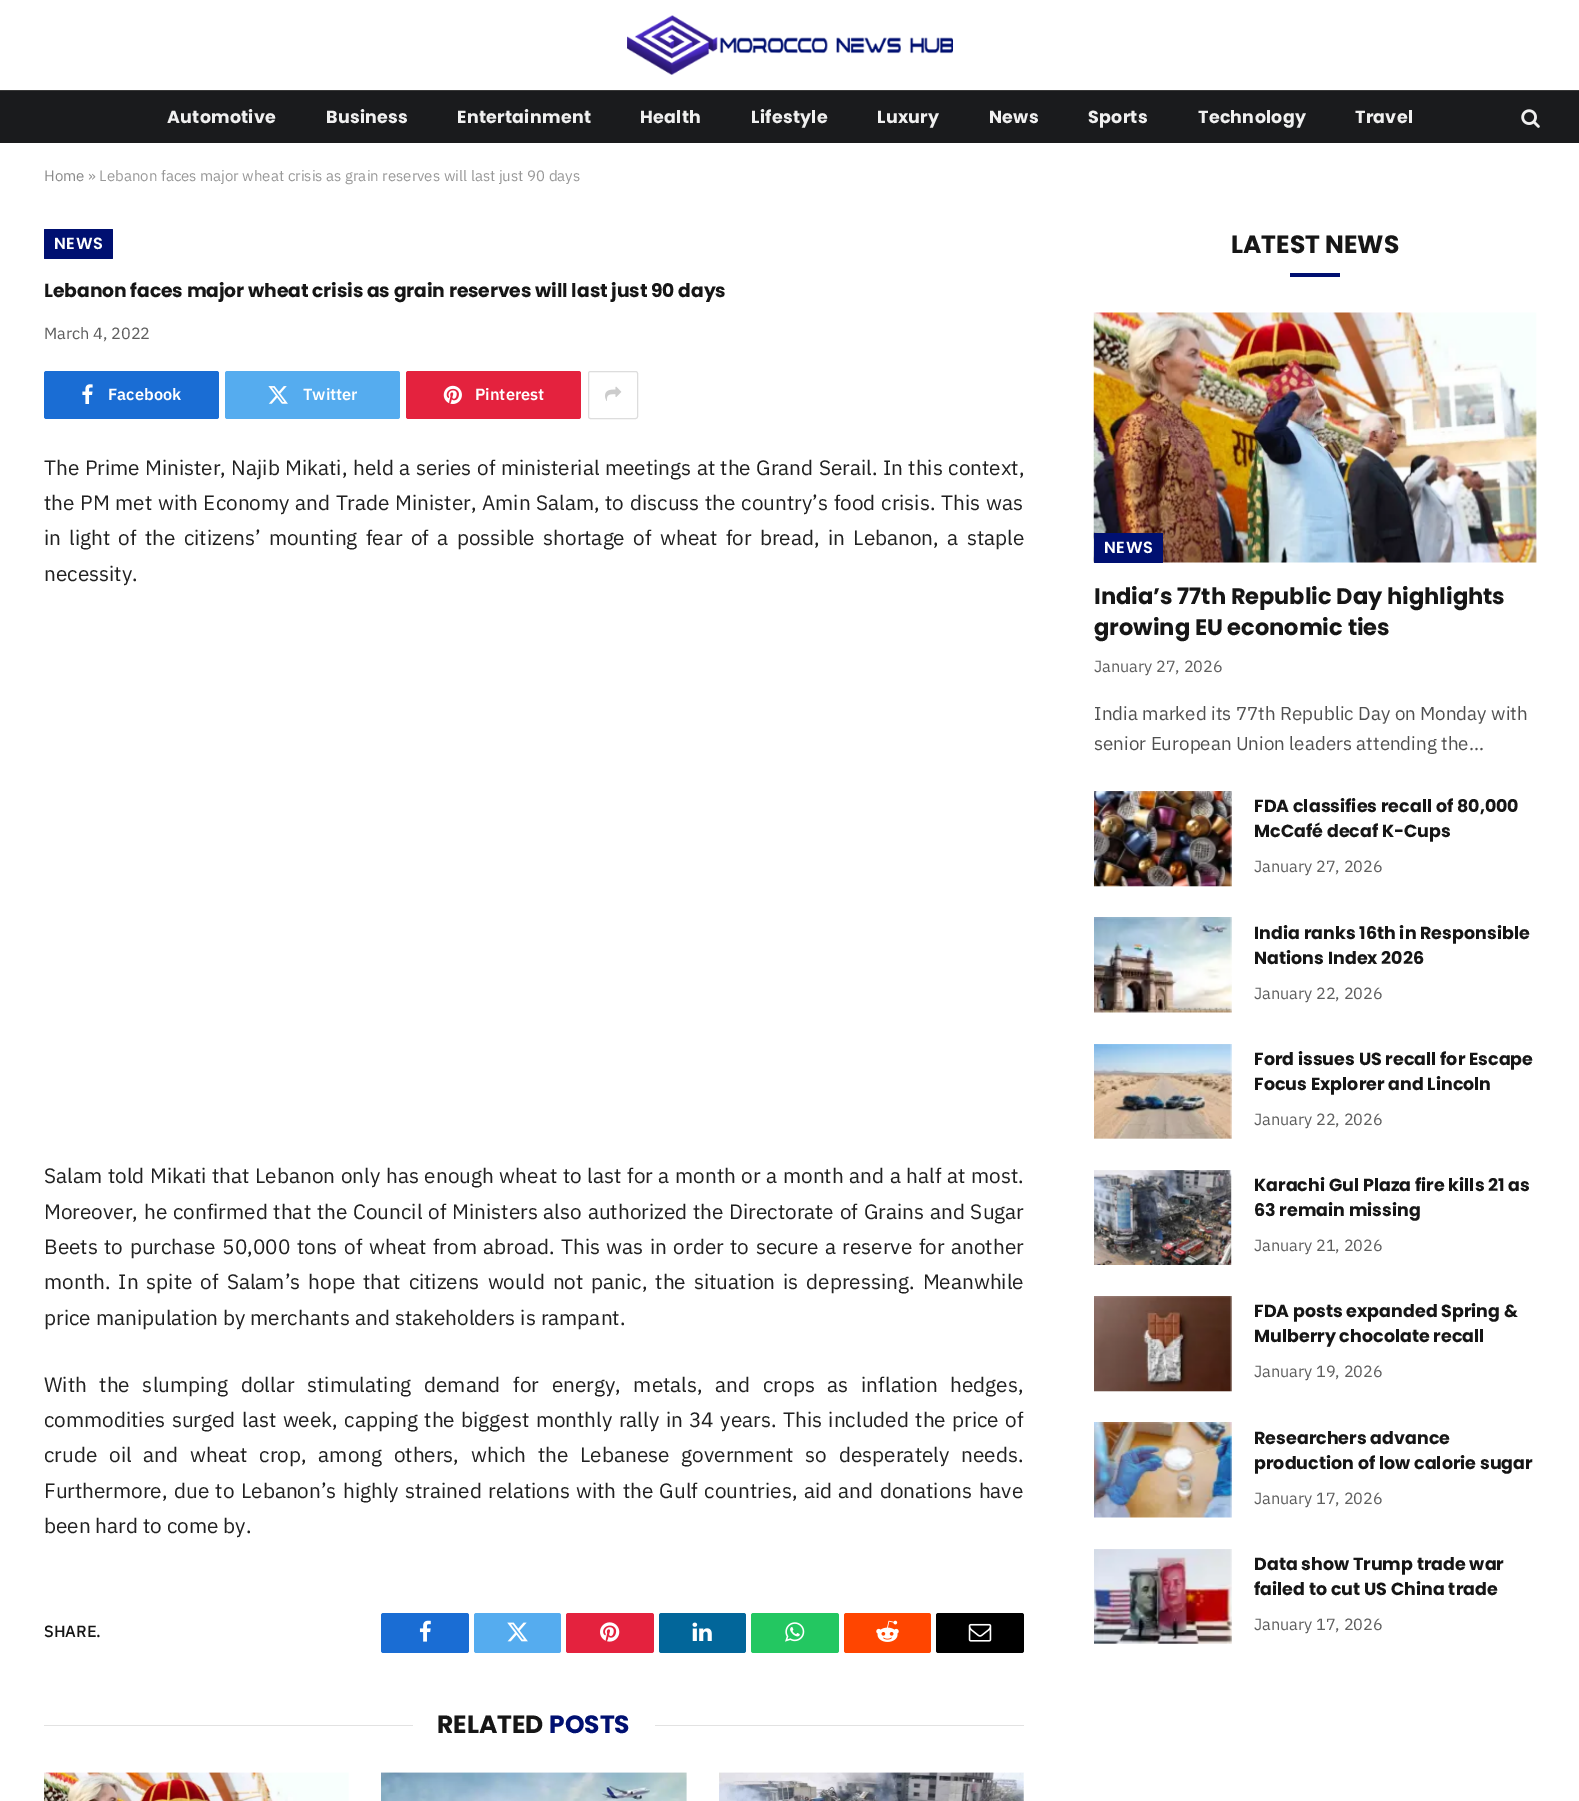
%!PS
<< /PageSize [1579 1801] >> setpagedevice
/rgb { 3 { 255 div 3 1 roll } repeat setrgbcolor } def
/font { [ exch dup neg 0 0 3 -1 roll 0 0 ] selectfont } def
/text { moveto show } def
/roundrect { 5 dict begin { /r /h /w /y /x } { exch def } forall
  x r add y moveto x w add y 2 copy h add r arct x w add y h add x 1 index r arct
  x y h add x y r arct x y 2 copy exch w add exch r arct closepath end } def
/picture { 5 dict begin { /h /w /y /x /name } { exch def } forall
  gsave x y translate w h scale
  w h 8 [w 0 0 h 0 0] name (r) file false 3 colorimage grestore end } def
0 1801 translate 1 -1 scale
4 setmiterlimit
255 255 255 rgb
0 0 1579 1801 rectfill
(img_01.rgb) 627 15 326 60 picture
26 27 29 rgb
0 91 1579 52 rectfill
56 56 56 rgb
0 90 1579 1 rectfill
(img_02.rgb) 1521 109 19 19 picture
0 16 113 rgb
44 229 69 30 1 roundrect fill
26 109 212 rgb
44 371 175 48 2.5 roundrect fill
(img_03.rgb) 82 384 11 20 picture
85 172 239 rgb
225 371 175 48 2.5 roundrect fill
(img_04.rgb) 268 386 20 18 picture
228 34 62 rgb
406 371 175 48 2.5 roundrect fill
(img_05.rgb) 443 385 19 19 picture
221 221 221 rgb
588.5 371.5 49 47 2 roundrect stroke
(img_06.rgb) 605 386 17 15 picture
26 109 212 rgb
381 1613 88 40 2.5 roundrect fill
(img_07.rgb) 419 1620 12 22 picture
85 172 239 rgb
474 1613 87 40 2.5 roundrect fill
(img_08.rgb) 507 1622 21 20 picture
228 34 62 rgb
566 1613 88 40 2.5 roundrect fill
(img_09.rgb) 600 1622 20 20 picture
2 102 154 rgb
659 1613 87 40 2.5 roundrect fill
(img_10.rgb) 692 1622 20 19 picture
35 199 97 rgb
751 1613 88 40 2.5 roundrect fill
(img_11.rgb) 785 1622 20 20 picture
255 69 0 rgb
844 1613 87 40 2.5 roundrect fill
(img_12.rgb) 876 1620 23 22 picture
0 0 0 rgb
936 1613 88 40 2.5 roundrect fill
(img_13.rgb) 968 1623 24 19 picture
226 226 226 rgb
44 1725 369 1 rectfill
655 1725 369 1 rectfill
(img_14.rgb) 44 1772 305 29 picture
(img_15.rgb) 381 1772 306 29 picture
(img_16.rgb) 719 1772 305 29 picture
0 16 113 rgb
1290 273 50 4 rectfill
(img_17.rgb) 1093 312 444 251 picture
1094 533 69 30 1 roundrect fill
(img_18.rgb) 1094 791 138 96 picture
(img_19.rgb) 1094 917 138 96 picture
(img_20.rgb) 1094 1044 138 95 picture
(img_21.rgb) 1094 1170 138 95 picture
(img_22.rgb) 1094 1296 138 96 picture
(img_23.rgb) 1094 1422 138 96 picture
(img_24.rgb) 1094 1549 138 95 picture
/Poppins-Bold 17.5 font
240 240 240 rgb
167 123 moveto 0.25 0 (Automotive) ashow
326 123 moveto 0.25 0 (Business) ashow
457 123 moveto 0.25 0 (Entertainment) ashow
640 123 moveto 0.25 0 (Health) ashow
751 123 moveto 0.25 0 (Lifestyle) ashow
877 123 moveto 0.25 0 (Luxury) ashow
989 123 moveto 0.25 0 (News) ashow
1088 123 moveto 0.25 0 (Sports) ashow
1198 123 moveto 0.25 0 (Technology) ashow
1355 123 moveto 0.25 0 (Travel) ashow
/IBMPlexSans-Regular 15 font
138 138 138 rgb
(Home) 44 181 text
153 153 153 rgb
(» Lebanon faces major wheat crisis as grain reserves will last just 90 days) 88 181 text
/Poppins-SemiBold 16.25 font
255 255 255 rgb
54 249 moveto 0.5 0 (NEWS) ashow
/Poppins-Bold 18.75 font
22 22 22 rgb
44 297 moveto -0.1 0 (Lebanon faces major wheat crisis as grain reserves will last just 90 days) ashow
/IBMPlexSans-Regular 16.25 font
94 94 94 rgb
(March 4, 2022) 44 339 text
/IBMPlexSans-SemiBold 16.25 font
255 255 255 rgb
(Facebook) 108 400 text
(Twitter) 303 400 text
(Pinterest) 475 400 text
/IBMPlexSans-Regular 20.75 font
33 33 33 rgb
44 475 moveto 0.6 0 32 (The Prime Minister, Najib Mikati, held a series of ministerial meetings at the Grand Serail. In this context,) widthshow
44 510 moveto 0.75 0 32 (the PM met with Economy and Trade Minister, Amin Salam, to discuss the country’s food crisis. This was) widthshow
44 545 moveto 3.4 0 32 (in light of the citizens’ mounting fear of a possible shortage of wheat for bread, in Lebanon, a staple) widthshow
(necessity.) 44 581 text
44 1183 moveto 0.75 0 32 (Salam told Mikati that Lebanon only has enough wheat to last for a month or a month and a half at most.) widthshow
44 1219 moveto 0.9 0 32 (Moreover, he confirmed that the Council of Ministers also authorized the Directorate of Grains and Sugar) widthshow
44 1254 moveto 1.6 0 32 (Beets to purchase 50,000 tons of wheat from abroad. This was in order to secure a reserve for another) widthshow
44 1289 moveto 3.1 0 32 (month. In spite of Salam’s hope that citizens would not panic, the situation is depressing. Meanwhile) widthshow
(price manipulation by merchants and stakeholders is rampant.) 44 1325 text
44 1392 moveto 7.75 0 32 (With the slumping dollar stimulating demand for energy, metals, and crops as inflation hedges,) widthshow
44 1427 moveto 1.6 0 32 (commodities surged last week, capping the biggest monthly rally in 34 years. This included the price of) widthshow
44 1462 moveto 6.9 0 32 (crude oil and wheat crop, among others, which the Lebanese government so desperately needs.) widthshow
44 1498 moveto 1.5 0 32 (Furthermore, due to Lebanon’s highly strained relations with the Gulf countries, aid and donations have) widthshow
(been hard to come by.) 44 1533 text
/IBMPlexSans-Medium 16.25 font
22 22 22 rgb
(SHARE.) 44 1637 text
/Poppins-Bold 25 font
(RELATED) 437 1733 text
0 16 113 rgb
(POSTS) 549 1733 text
22 22 22 rgb
(LATEST NEWS) 1231 253 text
/Poppins-SemiBold 16.25 font
255 255 255 rgb
1104 553 moveto 0.5 0 (NEWS) ashow
/Poppins-Bold 22.5 font
22 22 22 rgb
(India’s 77th Republic Day highlights) 1094 604 text
(growing EU economic ties) 1094 635 text
/IBMPlexSans-Regular 16.25 font
94 94 94 rgb
(January 27, 2026) 1094 672 text
/IBMPlexSans-Regular 18.75 font
80 80 80 rgb
(India marked its 77th Republic Day on Monday with) 1094 720 text
(senior European Union leaders attending the…) 1094 750 text
/Poppins-Bold 17.5 font
22 22 22 rgb
(FDA classifies recall of 80,000) 1254 812 text
(McCafé decaf K-Cups) 1254 837 text
/IBMPlexSans-Regular 16.25 font
94 94 94 rgb
(January 27, 2026) 1254 872 text
/Poppins-Bold 17.5 font
22 22 22 rgb
(India ranks 16th in Responsible) 1254 939 text
(Nations Index 2026) 1254 964 text
/IBMPlexSans-Regular 16.25 font
94 94 94 rgb
(January 22, 2026) 1254 999 text
/Poppins-Bold 17.5 font
22 22 22 rgb
(Ford issues US recall for Escape) 1254 1065 text
(Focus Explorer and Lincoln) 1254 1090 text
/IBMPlexSans-Regular 16.25 font
94 94 94 rgb
(January 22, 2026) 1254 1125 text
/Poppins-Bold 17.5 font
22 22 22 rgb
(Karachi Gul Plaza fire kills 21 as) 1254 1191 text
(63 remain missing) 1254 1216 text
/IBMPlexSans-Regular 16.25 font
94 94 94 rgb
(January 21, 2026) 1254 1251 text
/Poppins-Bold 17.5 font
22 22 22 rgb
(FDA posts expanded Spring &) 1254 1317 text
(Mulberry chocolate recall) 1254 1342 text
/IBMPlexSans-Regular 16.25 font
94 94 94 rgb
(January 19, 2026) 1254 1377 text
/Poppins-Bold 17.5 font
22 22 22 rgb
(Researchers advance) 1254 1444 text
(production of low calorie sugar) 1254 1469 text
/IBMPlexSans-Regular 16.25 font
94 94 94 rgb
(January 17, 2026) 1254 1504 text
/Poppins-Bold 17.5 font
22 22 22 rgb
(Data show Trump trade war) 1254 1570 text
(failed to cut US China trade) 1254 1595 text
/IBMPlexSans-Regular 16.25 font
94 94 94 rgb
(January 17, 2026) 1254 1630 text
showpage
